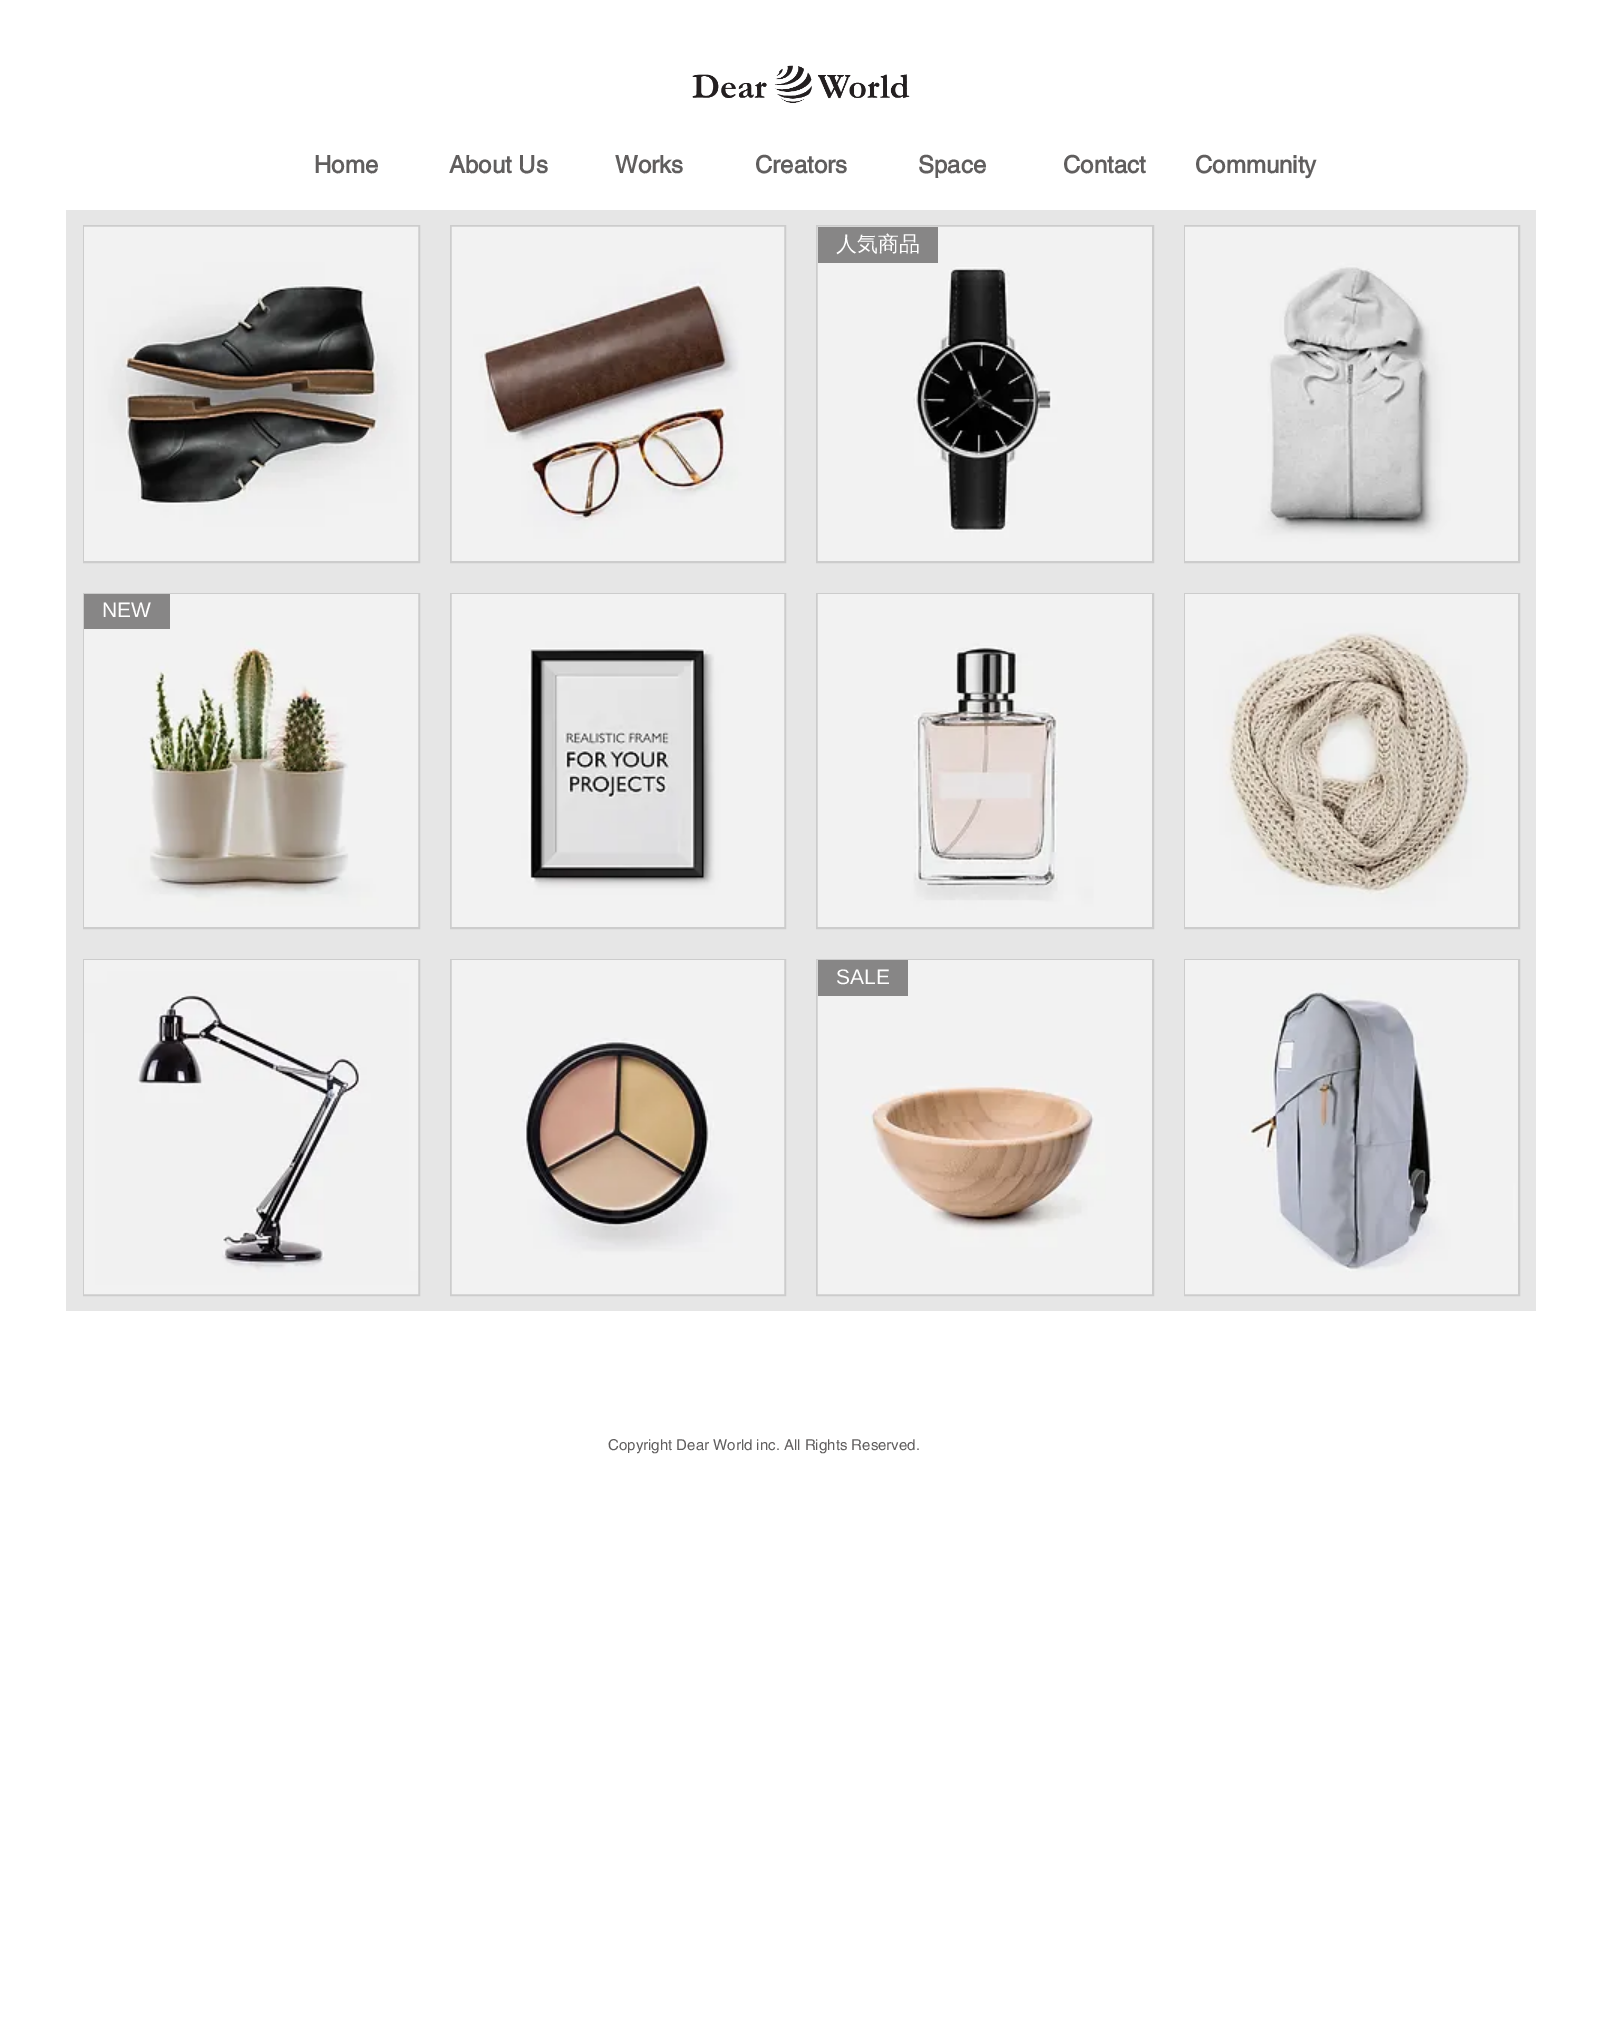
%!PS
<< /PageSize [1601 2038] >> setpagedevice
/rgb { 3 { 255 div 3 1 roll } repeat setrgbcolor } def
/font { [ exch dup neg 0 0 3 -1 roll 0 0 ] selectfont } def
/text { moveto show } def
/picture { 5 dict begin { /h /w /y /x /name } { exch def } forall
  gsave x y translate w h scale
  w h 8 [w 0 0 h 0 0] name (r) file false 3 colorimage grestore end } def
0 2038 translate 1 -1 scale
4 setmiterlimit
255 255 255 rgb
0 0 1601 2038 rectfill
(img_01.rgb) 692 65 218 39 picture
230 230 230 rgb
66 210 1470 1101 rectfill
204 204 204 rgb
2 setlinewidth
84 226 335 336 rectstroke
(img_02.rgb) 84 226 335 335 picture
451 226 334 336 rectstroke
(img_03.rgb) 451 226 334 335 picture
817 226 336 336 rectstroke
(img_04.rgb) 817 226 335 335 picture
135 134 134 rgb
818 227 120 36 rectfill
204 204 204 rgb
1185 226 334 336 rectstroke
(img_05.rgb) 1185 226 333 335 picture
84 594 335 334 rectstroke
(img_06.rgb) 84 594 335 333 picture
135 134 134 rgb
84 594 86 35 rectfill
204 204 204 rgb
451 594 334 334 rectstroke
(img_07.rgb) 451 594 334 333 picture
817 594 336 334 rectstroke
(img_08.rgb) 817 594 335 333 picture
1185 594 334 334 rectstroke
(img_09.rgb) 1185 594 333 333 picture
84 960 335 335 rectstroke
(img_10.rgb) 84 960 335 335 picture
451 960 334 335 rectstroke
(img_11.rgb) 451 960 334 335 picture
817 960 336 335 rectstroke
(img_12.rgb) 817 960 335 335 picture
135 134 134 rgb
818 960 90 36 rectfill
204 204 204 rgb
1185 960 334 335 rectstroke
(img_13.rgb) 1185 960 333 335 picture
/helvetica-Bold 24 font
96 94 94 rgb
(Home) 314 173 text
(About Us) 449 173 text
(Works) 615 173 text
(Creators) 755 173 text
(Space) 918 173 text
(Contact) 1063 173 text
(Community) 1195 173 text
/WenQuanYiZenHei-Medium 21 font
255 255 255 rgb
(人気商品) 836 251 text
/LiberationSans-Regular 21 font
(NEW) 102 617 text
(SALE) 836 984 text
/helvetica-Regular 15 font
96 94 94 rgb
(Copyright Dear World inc. All Rights Reserved.) 608 1450 text
showpage
